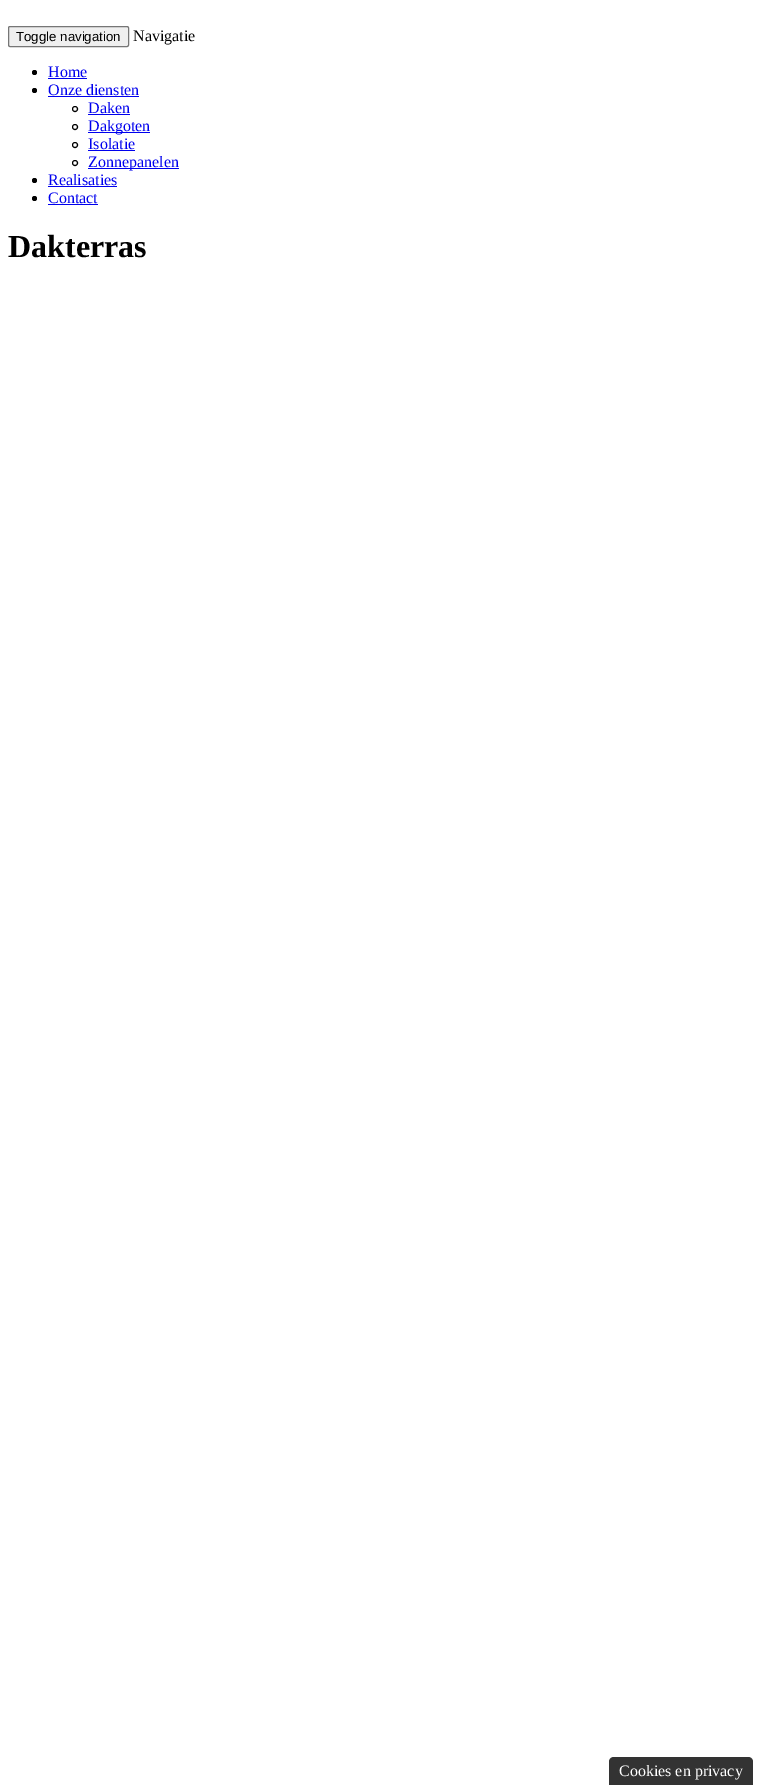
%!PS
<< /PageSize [763 1785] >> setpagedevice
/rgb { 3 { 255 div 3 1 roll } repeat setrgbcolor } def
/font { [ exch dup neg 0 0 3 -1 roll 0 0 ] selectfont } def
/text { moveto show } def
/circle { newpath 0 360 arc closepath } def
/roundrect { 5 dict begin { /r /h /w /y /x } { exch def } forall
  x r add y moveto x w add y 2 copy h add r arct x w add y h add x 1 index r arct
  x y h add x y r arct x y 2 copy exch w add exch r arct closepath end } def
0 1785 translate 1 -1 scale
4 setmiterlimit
255 255 255 rgb
0 0 763 1785 rectfill
239 239 239 rgb
8.5 26.5 120 20 1.5 roundrect gsave fill grestore
118 118 118 rgb
stroke
0 0 0 rgb
34.5 72.5 2.5 circle fill
0 0 238 rgb
48 78 39 1 rectfill
0 0 0 rgb
34.5 90.5 2.5 circle fill
0 0 238 rgb
48 96 91 1 rectfill
0 0 0 rgb
75 109 2.5 circle stroke
0 0 238 rgb
88 114 42 1 rectfill
0 0 0 rgb
75 127 2.5 circle stroke
0 0 238 rgb
88 132 62 1 rectfill
0 0 0 rgb
75 145 2.5 circle stroke
0 0 238 rgb
88 150 47 1 rectfill
0 0 0 rgb
75 163 2.5 circle stroke
0 0 238 rgb
88 168 91 1 rectfill
0 0 0 rgb
34.5 180.5 2.5 circle fill
0 0 238 rgb
48 186 69 1 rectfill
0 0 0 rgb
34.5 198.5 2.5 circle fill
0 0 238 rgb
48 204 50 1 rectfill
51 51 51 rgb
614 1757 moveto 134 0 rlineto 3 0 5 2 5 5 rcurveto 0 23 rlineto -144 0 rlineto 0 -23 rlineto 0 -3 2 -5 5 -5 rcurveto closepath fill
/LiberationSans-Regular 13.25 font
0 0 0 rgb
(Toggle navigation) 16 41 text
/LiberationSerif-Regular 16 font
(Navigatie) 133 41 text
0 0 238 rgb
(Home) 48 77 text
(Onze diensten) 48 95 text
(Daken) 88 113 text
(Dakgoten) 88 131 text
(Isolatie) 88 149 text
(Zonnepanelen) 88 167 text
(Realisaties) 48 185 text
(Contact) 48 203 text
/LiberationSerif-Bold 32 font
0 0 0 rgb
(Dakterras) 8 257 text
/LiberationSerif-Regular 16 font
255 255 255 rgb
(Cookies en privacy) 619 1776 text
showpage
